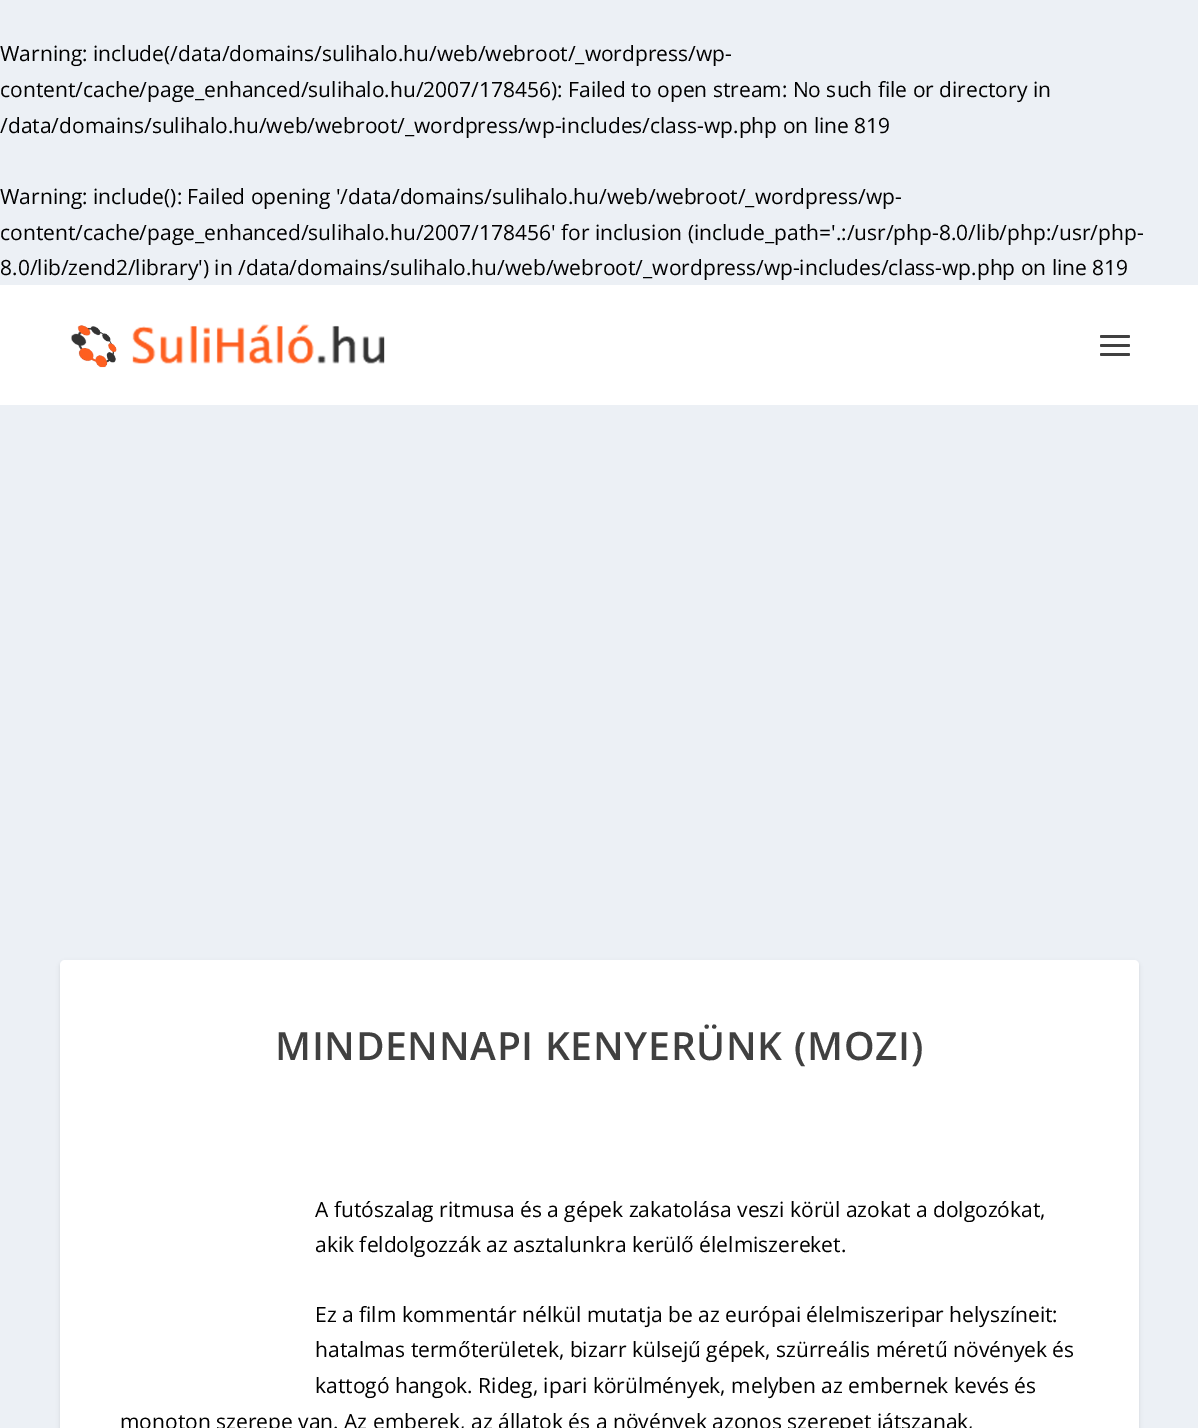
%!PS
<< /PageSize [1198 1428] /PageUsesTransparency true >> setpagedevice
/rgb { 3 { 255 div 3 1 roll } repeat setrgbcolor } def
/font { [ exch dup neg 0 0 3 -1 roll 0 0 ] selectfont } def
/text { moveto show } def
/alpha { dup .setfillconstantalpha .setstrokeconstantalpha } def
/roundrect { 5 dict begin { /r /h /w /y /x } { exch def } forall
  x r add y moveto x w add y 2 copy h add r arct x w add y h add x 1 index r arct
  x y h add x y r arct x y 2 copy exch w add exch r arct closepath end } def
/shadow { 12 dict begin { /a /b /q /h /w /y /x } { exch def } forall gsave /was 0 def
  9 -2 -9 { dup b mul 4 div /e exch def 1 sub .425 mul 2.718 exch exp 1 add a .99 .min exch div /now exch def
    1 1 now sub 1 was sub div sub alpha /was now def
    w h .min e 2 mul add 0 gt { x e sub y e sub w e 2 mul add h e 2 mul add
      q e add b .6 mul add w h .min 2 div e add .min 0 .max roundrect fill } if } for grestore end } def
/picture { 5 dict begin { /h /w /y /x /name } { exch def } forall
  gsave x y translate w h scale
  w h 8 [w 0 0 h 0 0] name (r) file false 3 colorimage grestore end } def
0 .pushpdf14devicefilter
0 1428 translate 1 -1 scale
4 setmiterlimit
236 240 245 rgb
0 0 1198 1428 rectfill
255 255 255 rgb
0 285 1198 120 rectfill
(img_01.rgb) 71 324 314 44 picture
64 64 64 rgb
1100 335 30 3 1.5 roundrect fill
1100 344 30 3 1.5 roundrect fill
1100 353 30 3 1.5 roundrect fill
0 0 0 rgb
60 962 1079 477 5 2 0.1 shadow
255 255 255 rgb
60 960 1079 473 5 roundrect fill
/OpenSans-Regular 21 font
0 0 0 rgb
(Warning: include\(/data/domains/sulihalo.hu/web/webroot/_wordpress/wp-) 0 61 text
(content/cache/page_enhanced/sulihalo.hu/2007/178456\): Failed to open stream: No such file or directory in) 0 97 text
(/data/domains/sulihalo.hu/web/webroot/_wordpress/wp-includes/class-wp.php on line 819) 0 133 text
(Warning: include\(\): Failed opening '/data/domains/sulihalo.hu/web/webroot/_wordpress/wp-) 0 204 text
(content/cache/page_enhanced/sulihalo.hu/2007/178456' for inclusion \(include_path='.:/usr/php-8.0/lib/php:/usr/php-) 0 240 text
(8.0/lib/zend2/library'\) in /data/domains/sulihalo.hu/web/webroot/_wordpress/wp-includes/class-wp.php on line 819) 0 275 text
/OpenSans-SemiBold 39 font
64 64 64 rgb
275 1060 moveto 0.75 0 (MINDENNAPI KENYERÜNK \(MOZI\)) ashow
/OpenSans-Regular 21 font
0 0 0 rgb
(A futószalag ritmusa és a gépek zakatolása veszi körül azokat a dolgozókat,) 315 1217 text
(akik feldolgozzák az asztalunkra kerülő élelmiszereket.) 315 1252 text
(Ez a film kommentár nélkül mutatja be az európai élelmiszeripar helyszíneit:) 315 1322 text
(hatalmas termőterületek, bizarr külsejű gépek, szürreális méretű növények és) 315 1357 text
(kattogó hangok. Rideg, ipari körülmények, melyben az embernek kevés és) 315 1393 text
(monoton szerepe van. Az emberek, az állatok és a növények azonos szerepet játszanak,) 120 1429 text
.poppdf14devicefilter showpage
